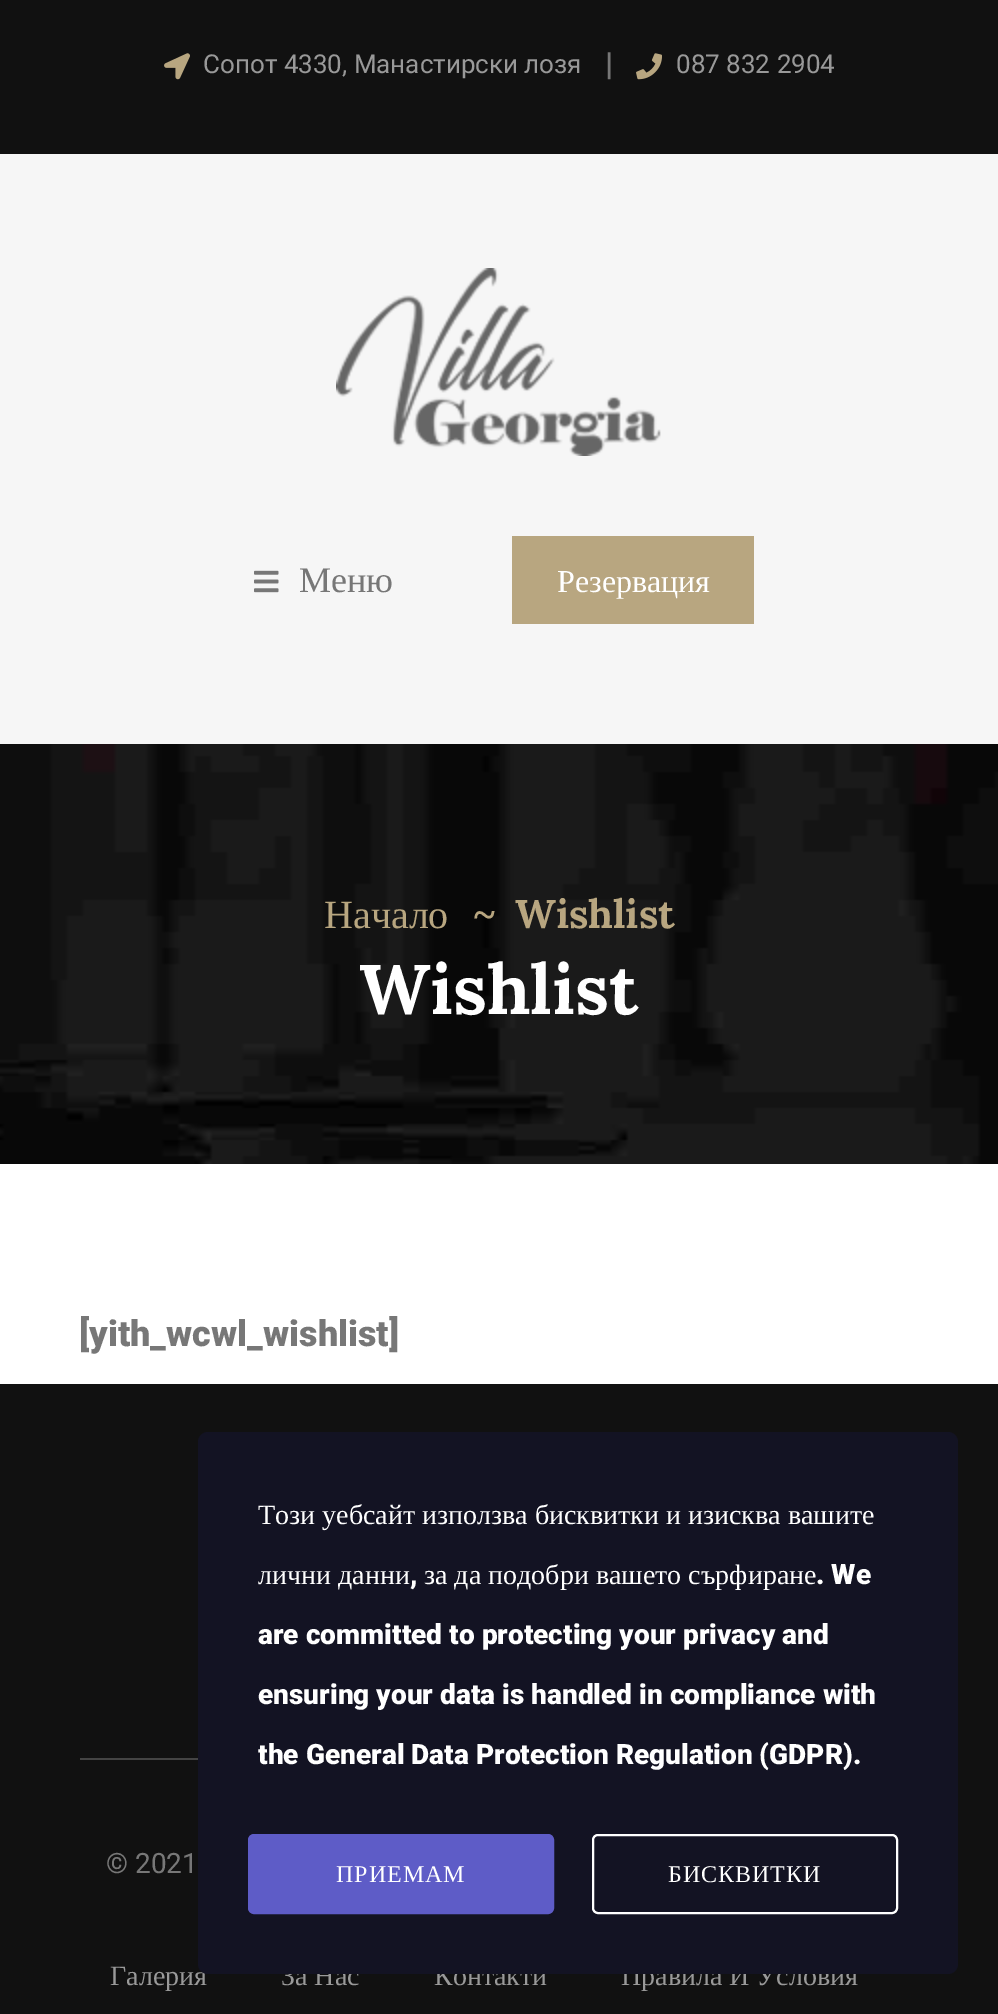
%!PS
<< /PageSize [998 2014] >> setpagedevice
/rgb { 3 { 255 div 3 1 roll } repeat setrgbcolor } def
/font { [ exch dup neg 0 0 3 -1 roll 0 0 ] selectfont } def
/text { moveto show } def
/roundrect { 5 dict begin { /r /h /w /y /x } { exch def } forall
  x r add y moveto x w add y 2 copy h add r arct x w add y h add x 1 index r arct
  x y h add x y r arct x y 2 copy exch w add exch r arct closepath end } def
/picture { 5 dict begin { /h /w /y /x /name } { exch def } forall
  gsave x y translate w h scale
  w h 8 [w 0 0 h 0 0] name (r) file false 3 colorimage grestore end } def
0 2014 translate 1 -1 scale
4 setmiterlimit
255 255 255 rgb
0 0 998 2014 rectfill
17 17 17 rgb
0 0 998 154 rectfill
(img_01.rgb) 164 53 26 27 picture
(img_02.rgb) 636 53 26 27 picture
246 246 246 rgb
0 154 998 590 rectfill
(img_03.rgb) 336 268 325 188 picture
(img_04.rgb) 254 570 25 23 picture
184 166 128 rgb
512 536 242 88 rectfill
(img_05.rgb) 0 744 998 420 picture
17 17 17 rgb
0 1384 998 630 rectfill
68 68 68 rgb
80 1758 118 2 rectfill
/Roboto-Regular 26 font
153 153 153 rgb
(Сопот 4330, Манастирски лозя) 203 73 text
/Roboto-Black 32 font
119 119 119 rgb
(|) 605 75 text
/Roboto-Regular 26 font
153 153 153 rgb
(087 832 2904) 676 73 text
/LiberationSerif-Regular 36 font
119 119 119 rgb
(Меню) 299 592 text
/LiberationSerif-Regular 32 font
255 255 255 rgb
(Резервация) 557 592 text
/LiberationSerif-Regular 40 font
184 166 128 rgb
(Начало) 324 928 text
/LiberationSerif-Bold 40 font
(~) 474 928 text
/Lora-Bold 40 font
(Wishlist) 515 928 text
/Lora-Bold 70 font
255 255 255 rgb
(Wishlist) 359 1014 text
/Roboto-Black 36 font
119 119 119 rgb
([yith_wcwl_wishlist]) 79 1346 text
/Roboto-Regular 28 font
(© 2021) 106 1873 text
/LiberationSerif-Regular 28 font
153 153 153 rgb
(Галерия) 110 1985 text
(За Нас) 281 1985 text
(Контакти) 434 1985 text
(Правила И Условия) 621 1985 text
19 19 35 rgb
198 1432 760 542 10 roundrect fill
255 255 255 rgb
(Този уебсайт използва бисквитки и изисква вашите) 258 1524 text
(лични данни) 258 1584 text
/Roboto-Black 28 font
(,) 410 1584 text
/LiberationSerif-Regular 28 font
(за да подобри вашето сърфиране) 424 1584 text
/Roboto-Black 28 font
(. We) 816 1584 text
(are committed to protecting your privacy and) 258 1644 text
(ensuring your data is handled in compliance with) 258 1704 text
(the General Data Protection Regulation \(GDPR\).) 258 1764 text
94 92 199 rgb
249 1835 304 78 5 roundrect gsave fill grestore
2 setlinewidth
stroke
/LiberationSerif-Regular 24 font
255 255 255 rgb
336 1882 moveto 1 0 (ПРИЕМАМ) ashow
593 1835 304 78 5 roundrect stroke
668 1882 moveto 1 0 (БИСКВИТКИ) ashow
showpage
